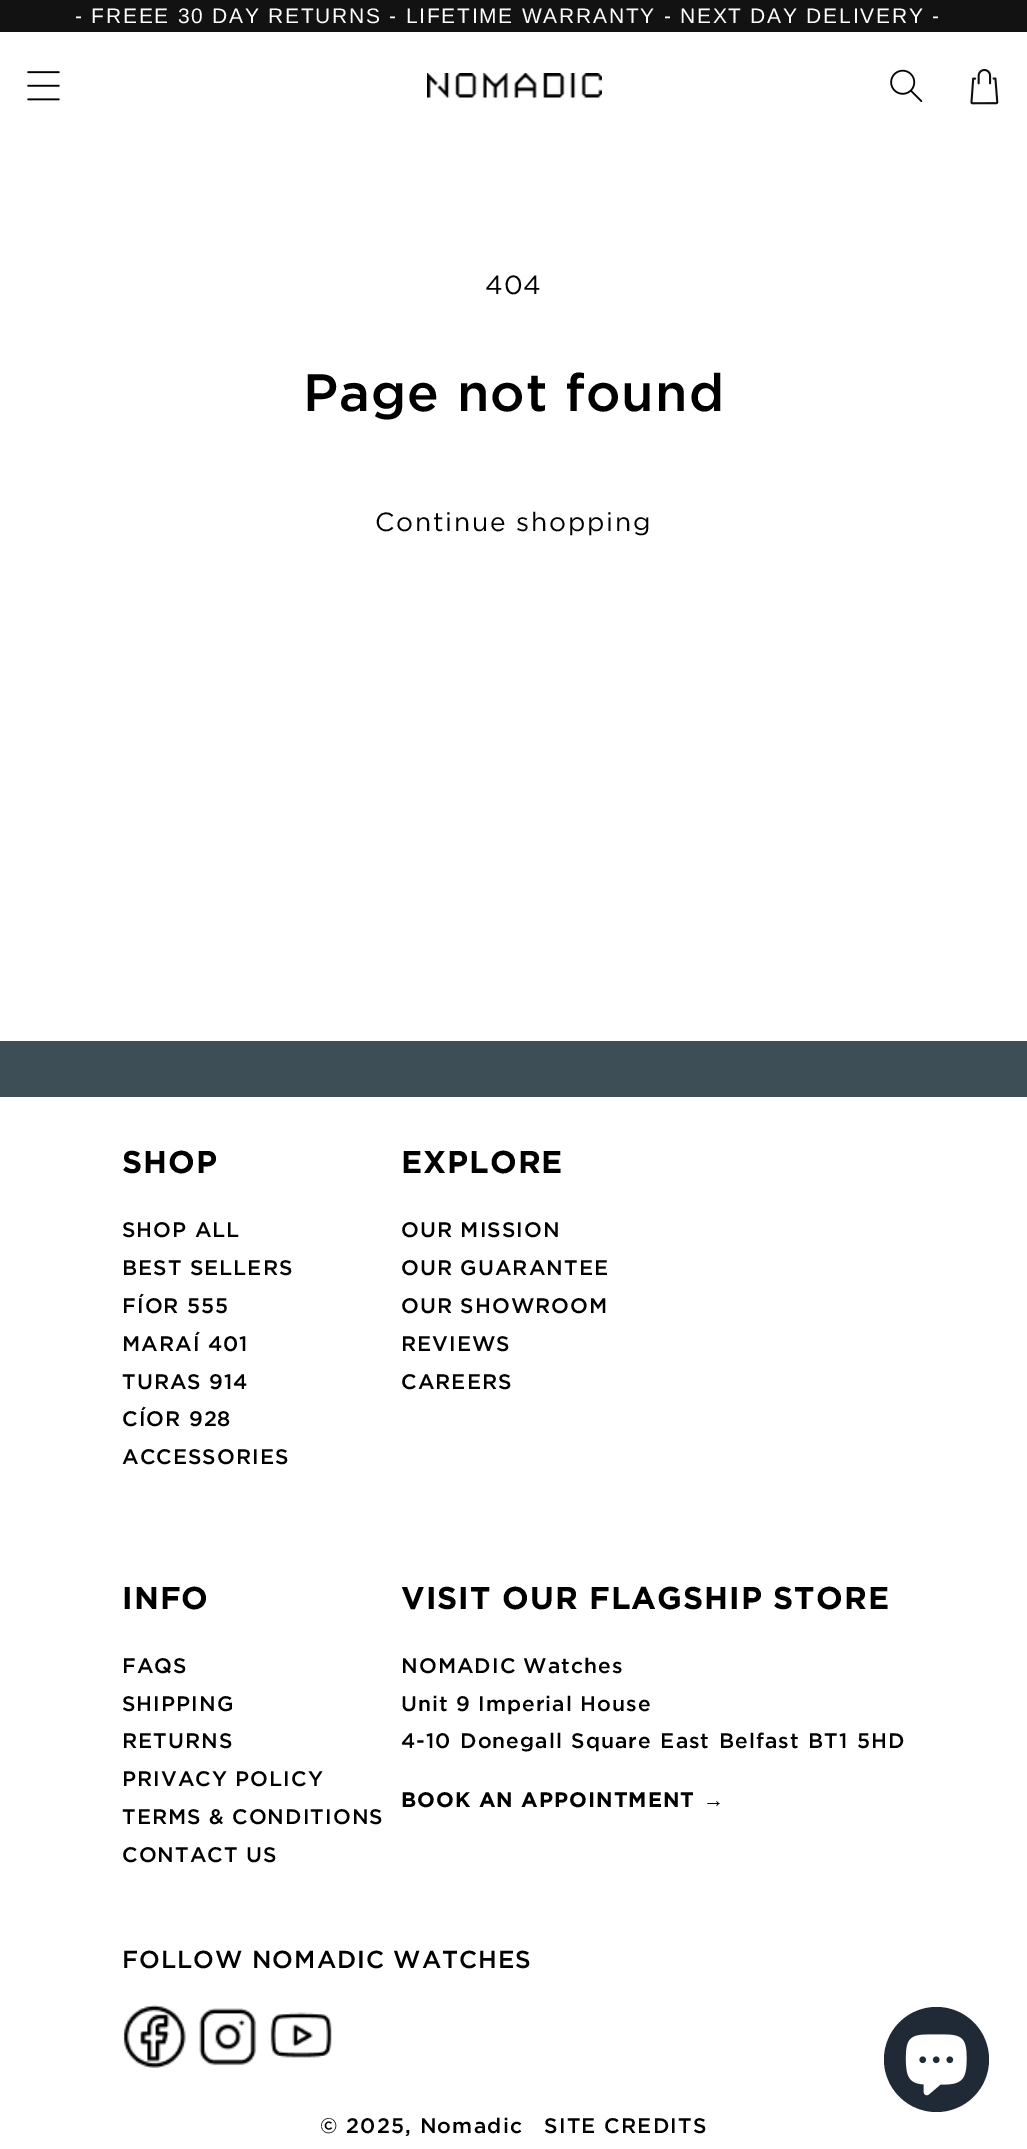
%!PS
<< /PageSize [1027 2149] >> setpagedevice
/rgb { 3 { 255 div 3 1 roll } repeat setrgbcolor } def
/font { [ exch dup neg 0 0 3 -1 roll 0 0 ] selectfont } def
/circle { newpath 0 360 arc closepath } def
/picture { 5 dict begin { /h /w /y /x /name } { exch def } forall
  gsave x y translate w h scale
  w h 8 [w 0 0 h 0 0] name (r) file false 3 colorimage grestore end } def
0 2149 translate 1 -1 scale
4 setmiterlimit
255 255 255 rgb
0 0 1027 2149 rectfill
18 18 18 rgb
0 0 1027 32 rectfill
(img_01.rgb) 27 71 33 30 picture
(img_02.rgb) 427 73 175 25 picture
(img_03.rgb) 890 69 33 34 picture
(img_04.rgb) 970 68 29 37 picture
61 78 87 rgb
0 1041 1027 56 rectfill
(img_05.rgb) 123 2005 63 63 picture
(img_06.rgb) 199 2008 58 58 picture
(img_07.rgb) 270 2012 62 46 picture
32 42 54 rgb
936.5 2059.5 52.5 circle fill
(img_08.rgb) 905 2034 62 62 picture
/LiberationSans-Regular 21 font
255 255 255 rgb
75 23 moveto 1.75 0 (- FREEE 30 DAY RETURNS - LIFETIME WARRANTY - NEXT DAY DELIVERY -) ashow
/Gotham-Regular 26.25 font
0 0 0 rgb
485 294 moveto 1.05 0 (404) ashow
/Gotham-Medium 52.5 font
303 411 moveto 1.05 0 (Page not found) ashow
/Gotham-Regular 26.25 font
375 531 moveto 1.75 0 (Continue shopping) ashow
/Gotham-Bold 31.5 font
122 1173 moveto 1.05 0 (SHOP) ashow
/Gotham-Medium 21 font
122 1237 moveto 1.05 0 (SHOP ALL) ashow
122 1275 moveto 1.05 0 (BEST SELLERS) ashow
122 1313 moveto 1.05 0 (FÍOR 555) ashow
122 1351 moveto 1.05 0 (MARAÍ 401) ashow
122 1389 moveto 1.05 0 (TURAS 914) ashow
122 1426 moveto 1.05 0 (CÍOR 928) ashow
122 1464 moveto 1.05 0 (ACCESSORIES) ashow
/Gotham-Bold 31.5 font
401 1173 moveto 1.05 0 (EXPLORE) ashow
/Gotham-Medium 21 font
401 1237 moveto 1.05 0 (OUR MISSION) ashow
401 1275 moveto 1.05 0 (OUR GUARANTEE) ashow
401 1313 moveto 1.05 0 (OUR SHOWROOM) ashow
401 1351 moveto 1.05 0 (REVIEWS) ashow
401 1389 moveto 1.05 0 (CAREERS) ashow
/Gotham-Bold 31.5 font
122 1609 moveto 1.05 0 (INFO) ashow
/Gotham-Medium 21 font
122 1673 moveto 1.05 0 (FAQS) ashow
122 1711 moveto 1.05 0 (SHIPPING) ashow
122 1748 moveto 1.05 0 (RETURNS) ashow
122 1786 moveto 1.05 0 (PRIVACY POLICY) ashow
122 1824 moveto 1.05 0 (TERMS & CONDITIONS) ashow
122 1862 moveto 1.05 0 (CONTACT US) ashow
/Gotham-Bold 31.5 font
401 1609 moveto 1.05 0 (VISIT OUR FLAGSHIP STORE) ashow
/Gotham-Medium 21 font
401 1673 moveto 1.05 0 (NOMADIC Watches) ashow
401 1711 moveto 1.05 0 (Unit 9 Imperial House) ashow
401 1748 moveto 1.25 0 32 1.05 0 (4-10 Donegall Square East Belfast BT1 5HD) awidthshow
/Gotham-Bold 21 font
401 1807 moveto 1.05 0 (BOOK AN APPOINTMENT) ashow
/LiberationSerif-Bold 21 font
703 1807 moveto 1.05 0 (→) ashow
/Gotham-Medium 24.5 font
122 1968 moveto 1.05 0 (FOLLOW NOMADIC WATCHES) ashow
/Gotham-Medium 21 font
320 2133 moveto 1.25 0 (© 2025, Nomadic) ashow
544 2133 moveto 1.25 0 (SITE CREDITS) ashow
showpage
